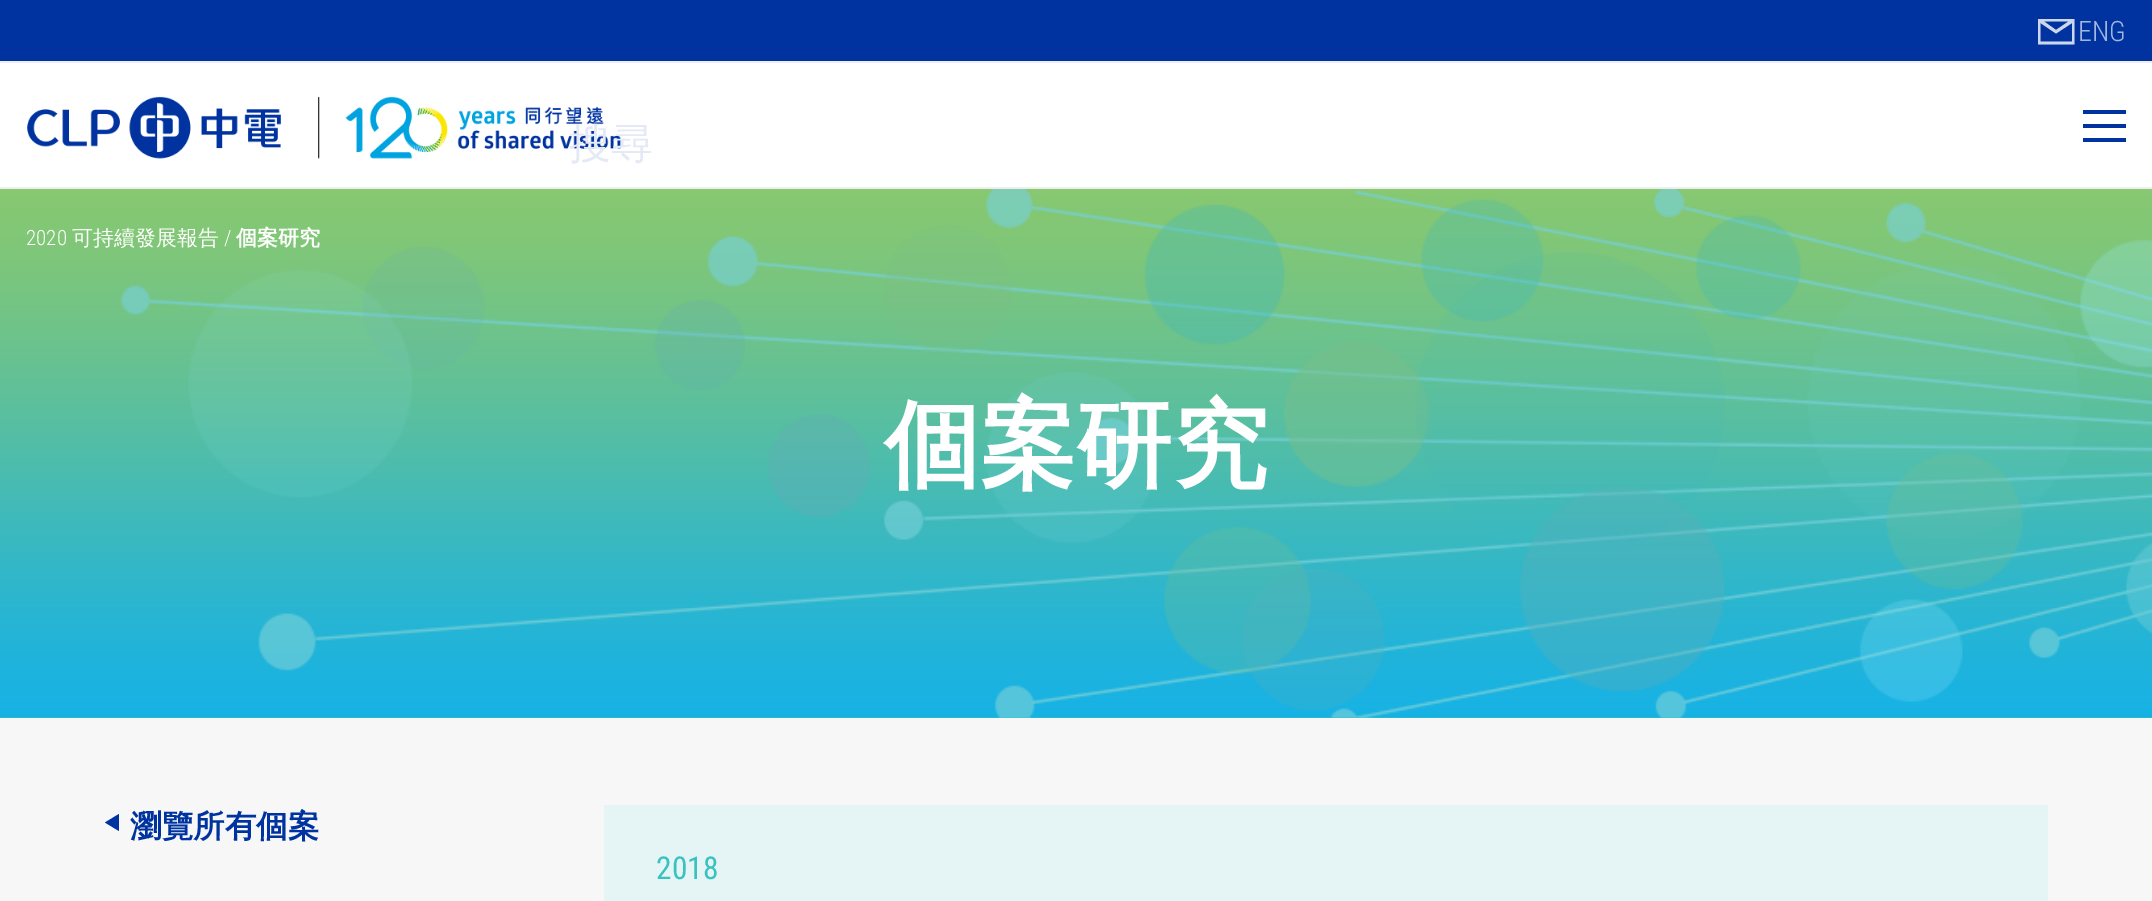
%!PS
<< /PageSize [2152 901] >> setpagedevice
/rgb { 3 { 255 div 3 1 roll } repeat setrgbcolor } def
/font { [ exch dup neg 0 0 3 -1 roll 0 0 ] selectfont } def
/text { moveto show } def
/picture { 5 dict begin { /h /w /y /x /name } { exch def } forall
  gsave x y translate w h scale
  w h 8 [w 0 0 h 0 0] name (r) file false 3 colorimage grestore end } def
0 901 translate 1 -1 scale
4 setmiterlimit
247 247 247 rgb
0 0 2152 901 rectfill
0 51 160 rgb
0 0 2152 61 rectfill
238 238 238 rgb
0 61 2152 2 rectfill
204 214 236 rgb
2038 19 moveto 36.5 0 rlineto 0 25.5 rlineto -36.5 0 rlineto closepath 2044 21.5 moveto 12 8.5 rlineto 12.5 -8.5 rlineto closepath 2040.5 23 moveto 0 18.5 rlineto 31.5 0 rlineto 0 -18.5 rlineto -16 10.5 rlineto closepath fill
255 255 255 rgb
0 63 2152 124 rectfill
238 238 238 rgb
0 187 2152 2 rectfill
(img_01.rgb) 27 96 594 63 picture
0 51 160 rgb
2083 110 43 4 rectfill
2083 124 43 4 rectfill
2083 138 43 4 rectfill
58 194 192 rgb
0 717 2152 1 rectfill
(img_02.rgb) 0 189 2152 529 picture
0 51 160 rgb
119 814 moveto 0 17 rlineto -14 -8.5 rlineto closepath fill
229 245 245 rgb
604 805 1444 96 rectfill
/RobotoCondensed-Light 28 font
163 182 221 rgb
(ENG) 2078 41 text
/WenQuanYiZenHei-Medium 42 font
228 234 245 rgb
(搜尋) 569 158 text
/RobotoCondensed-Light 21 font
255 255 255 rgb
(2020) 26 245 text
/WenQuanYiZenHei-Medium 21 font
(可持續發展報告) 72 245 text
/RobotoCondensed-Light 21 font
(/) 224 245 text
/WenQuanYiZenHei-Bold 21 font
(個案研究) 236 245 text
/WenQuanYiZenHei-Bold 96 font
(個案研究) 884 478 text
/WenQuanYiZenHei-Bold 31.5 font
0 51 160 rgb
(瀏覽所有個案) 130 837 text
/RobotoCondensed-Regular 31.5 font
58 194 192 rgb
(2018) 656 879 text
showpage
